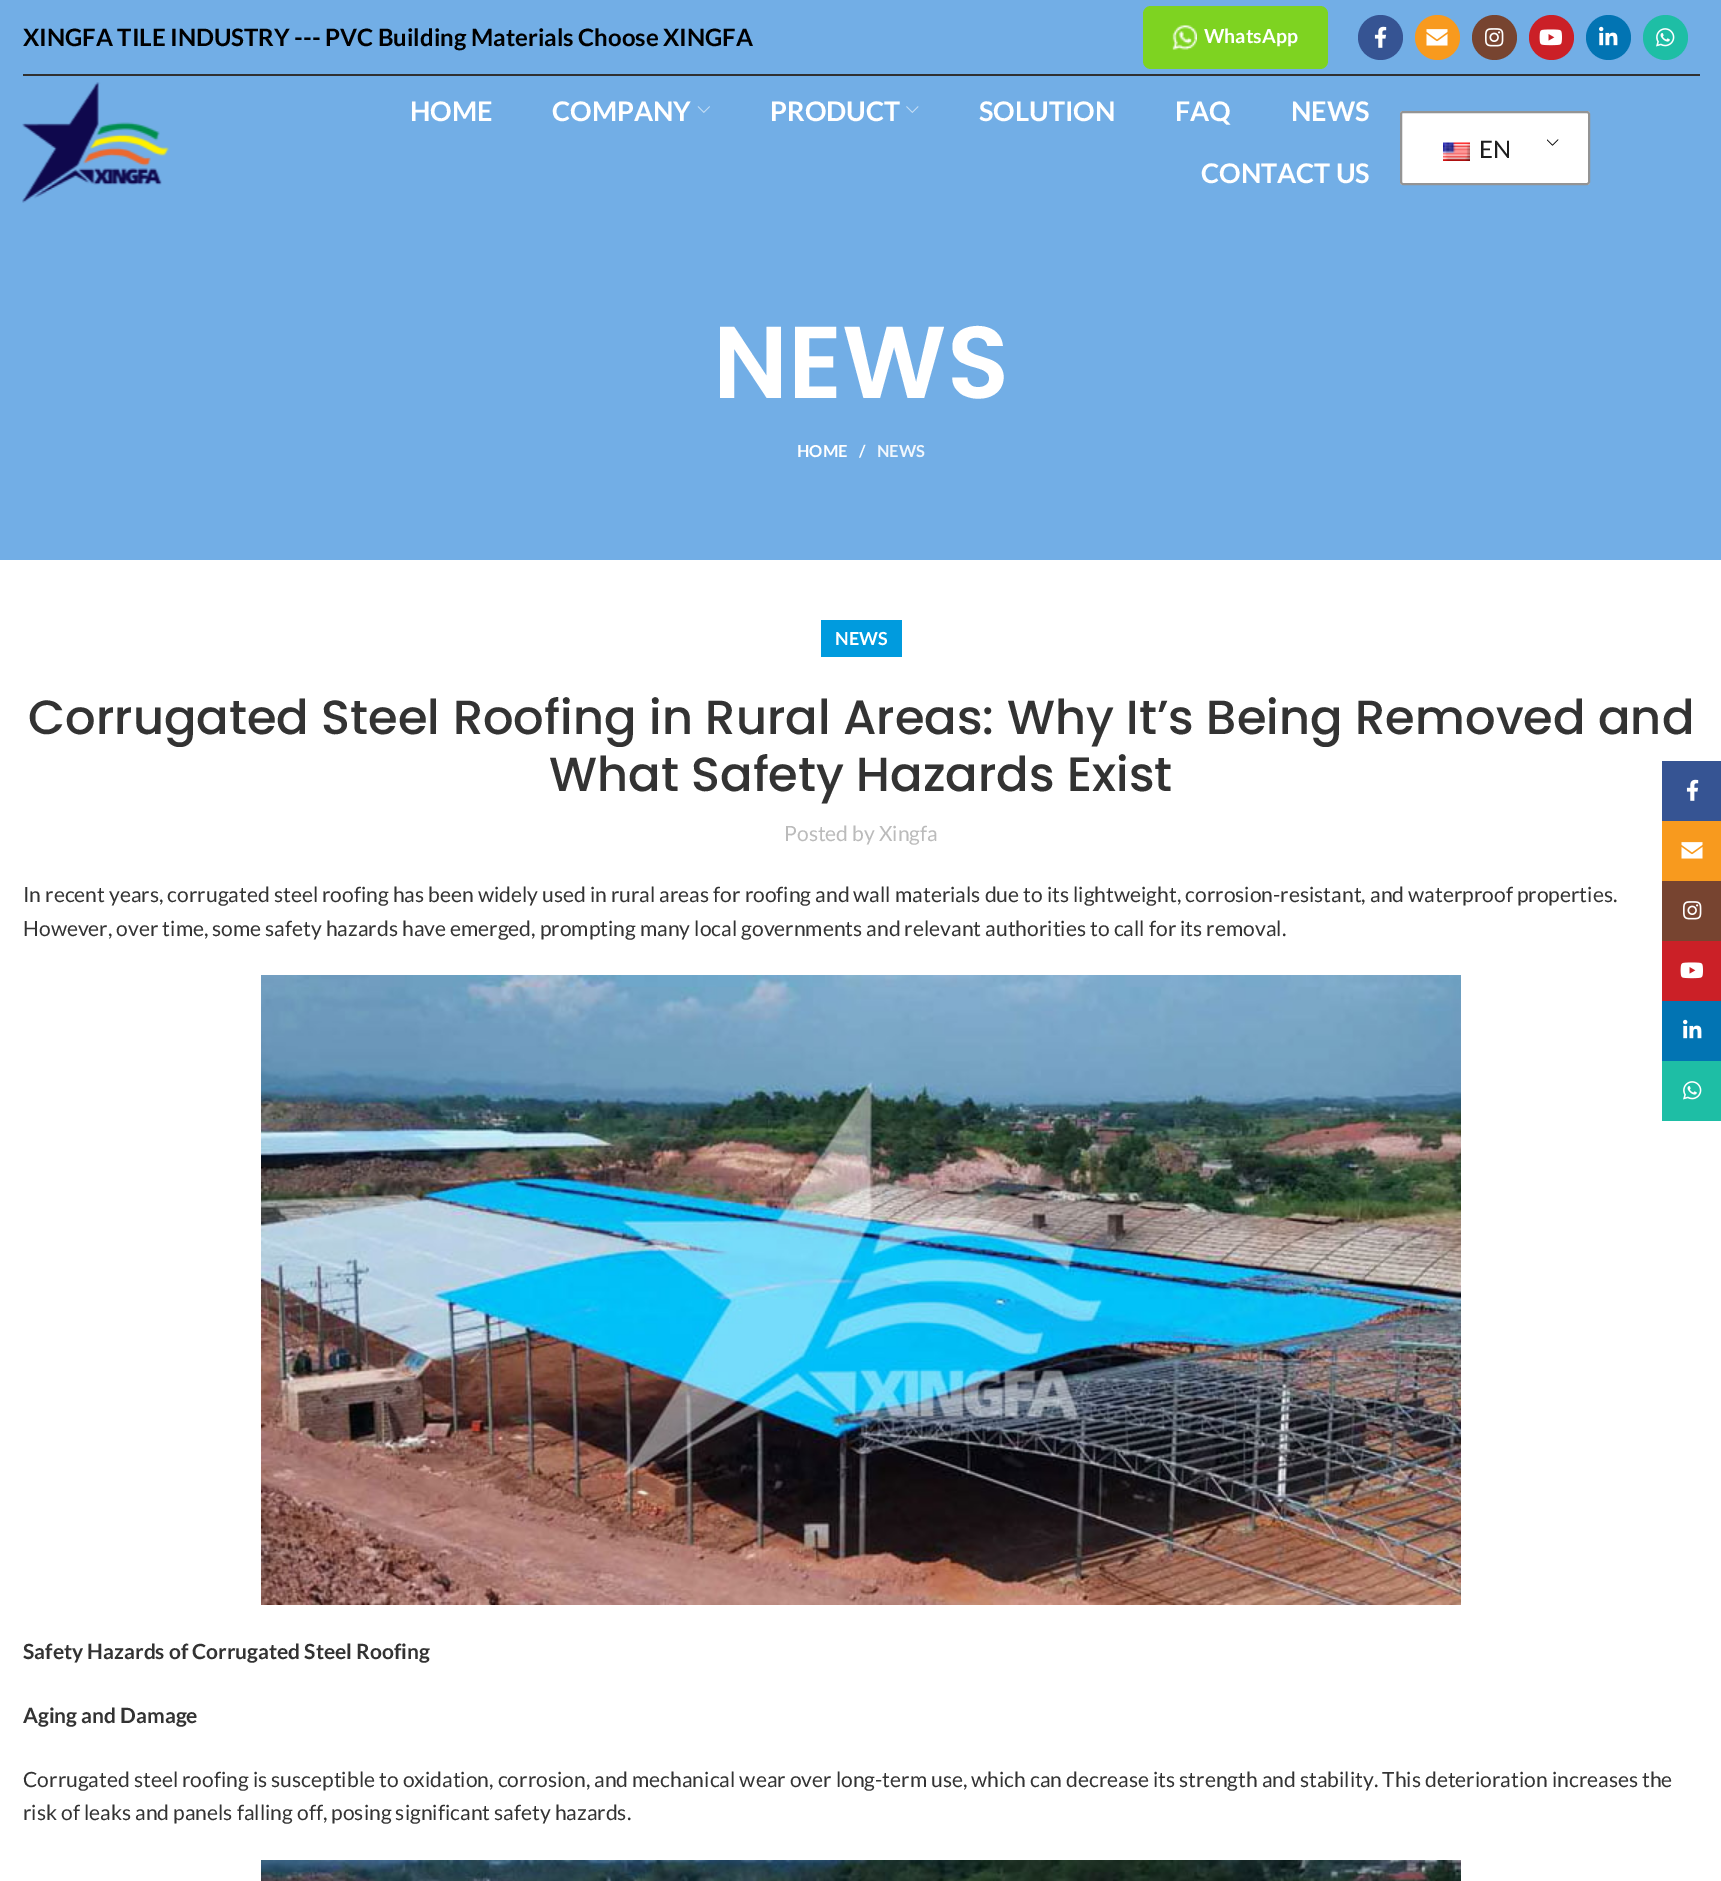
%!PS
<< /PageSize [1721 1881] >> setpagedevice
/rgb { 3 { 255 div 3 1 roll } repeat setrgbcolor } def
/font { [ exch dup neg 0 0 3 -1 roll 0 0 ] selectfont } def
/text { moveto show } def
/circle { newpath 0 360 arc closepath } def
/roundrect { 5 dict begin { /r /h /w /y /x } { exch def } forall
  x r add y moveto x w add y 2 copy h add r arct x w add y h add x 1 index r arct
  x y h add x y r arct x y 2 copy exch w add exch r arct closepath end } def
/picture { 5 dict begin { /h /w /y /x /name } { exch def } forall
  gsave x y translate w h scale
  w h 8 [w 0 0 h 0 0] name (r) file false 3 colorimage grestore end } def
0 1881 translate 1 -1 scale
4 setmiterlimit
255 255 255 rgb
0 0 1721 1881 rectfill
114 174 230 rgb
0 0 1721 560 rectfill
48 48 48 rgb
23 74 1677 2 rectfill
126 211 33 rgb
1143 6 185 63 8 roundrect fill
(img_01.rgb) 1172 25 25 25 picture
54 84 147 rgb
1380.5 37.5 22.5 circle fill
(img_02.rgb) 1374 26 13 22 picture
248 154 30 rgb
1437.5 37.5 22.5 circle fill
(img_03.rgb) 1426 29 22 17 picture
119 68 48 rgb
1494.5 37.5 22.5 circle fill
(img_04.rgb) 1485 28 19 19 picture
203 32 39 rgb
1551.5 37.5 22.5 circle fill
(img_05.rgb) 1539 29 23 17 picture
2 116 179 rgb
1608.5 37.5 22.5 circle fill
(img_06.rgb) 1599 26 19 20 picture
30 190 165 rgb
1665.5 37.5 22.5 circle fill
(img_07.rgb) 1656 28 19 19 picture
(img_08.rgb) 22 82 147 121 picture
(img_09.rgb) 697 106 13 7 picture
(img_10.rgb) 906 106 13 7 picture
255 255 255 rgb
1400 111 190 74 3 roundrect fill
(img_11.rgb) 1547 139 12 7 picture
148 148 148 rgb
2 setlinewidth
1401 112 188 72 2 roundrect stroke
(img_12.rgb) 1443 142 27 19 picture
0 155 222 rgb
821 620 81 37 rectfill
(img_13.rgb) 261 975 1200 630 picture
(img_14.rgb) 261 1860 1200 21 picture
54 84 147 rgb
1662 761 59 60 rectfill
(img_02.rgb) 1686 779 13 22 picture
248 154 30 rgb
1662 821 59 60 rectfill
(img_03.rgb) 1681 842 22 17 picture
119 68 48 rgb
1662 881 59 60 rectfill
(img_04.rgb) 1683 901 19 19 picture
203 32 39 rgb
1662 941 59 60 rectfill
(img_05.rgb) 1680 962 23 17 picture
2 116 179 rgb
1662 1001 59 60 rectfill
(img_06.rgb) 1683 1019 19 20 picture
30 190 165 rgb
1662 1061 59 60 rectfill
(img_07.rgb) 1683 1081 19 19 picture
/Lato-Bold 24 font
0 0 0 rgb
(XINGFA TILE INDUSTRY --- PVC Building Materials Choose XINGFA) 23 46 text
/Lato-Bold 19.5 font
255 255 255 rgb
(WhatsApp) 1204 43 text
/Lato-Bold 27 font
(HOME) 410 121 text
(COMPANY) 552 121 text
(PRODUCT) 770 121 text
(SOLUTION) 979 121 text
(FAQ) 1175 121 text
(NEWS) 1291 121 text
(CONTACT US) 1201 183 text
/Lato-Regular 24 font
30 30 30 rgb
(EN) 1479 158 text
/Poppins-SemiBold 102 font
255 255 255 rgb
(NEWS) 713 398 text
/Lato-Bold 16.5 font
(HOME) 797 457 text
(/) 859 457 text
241 247 253 rgb
(NEWS) 877 457 text
/Lato-Bold 18 font
255 255 255 rgb
(NEWS) 835 645 text
/Poppins-Medium 48 font
51 51 51 rgb
(Corrugated Steel Roofing in Rural Areas: Why It’s Being Removed and) 28 734 text
(What Safety Hazards Exist) 549 791 text
/Lato-Regular 21 font
187 187 187 rgb
(Posted by Xingfa) 784 841 text
51 51 51 rgb
(In recent years, corrugated steel roofing has been widely used in rural areas for roofing and wall materials due to its lightweight, corrosion-resistant, and waterproof properties.) 23 902 text
(However, over time, some safety hazards have emerged, prompting many local governments and relevant authorities to call for its removal.) 23 936 text
/Lato-Bold 21 font
(Safety Hazards of Corrugated Steel Roofing) 23 1659 text
(Aging and Damage) 23 1723 text
/Lato-Regular 21 font
(Corrugated steel roofing is susceptible to oxidation, corrosion, and mechanical wear over long-term use, which can decrease its strength and stability. This deterioration increases the) 23 1787 text
(risk of leaks and panels falling off, posing significant safety hazards.) 23 1820 text
showpage
